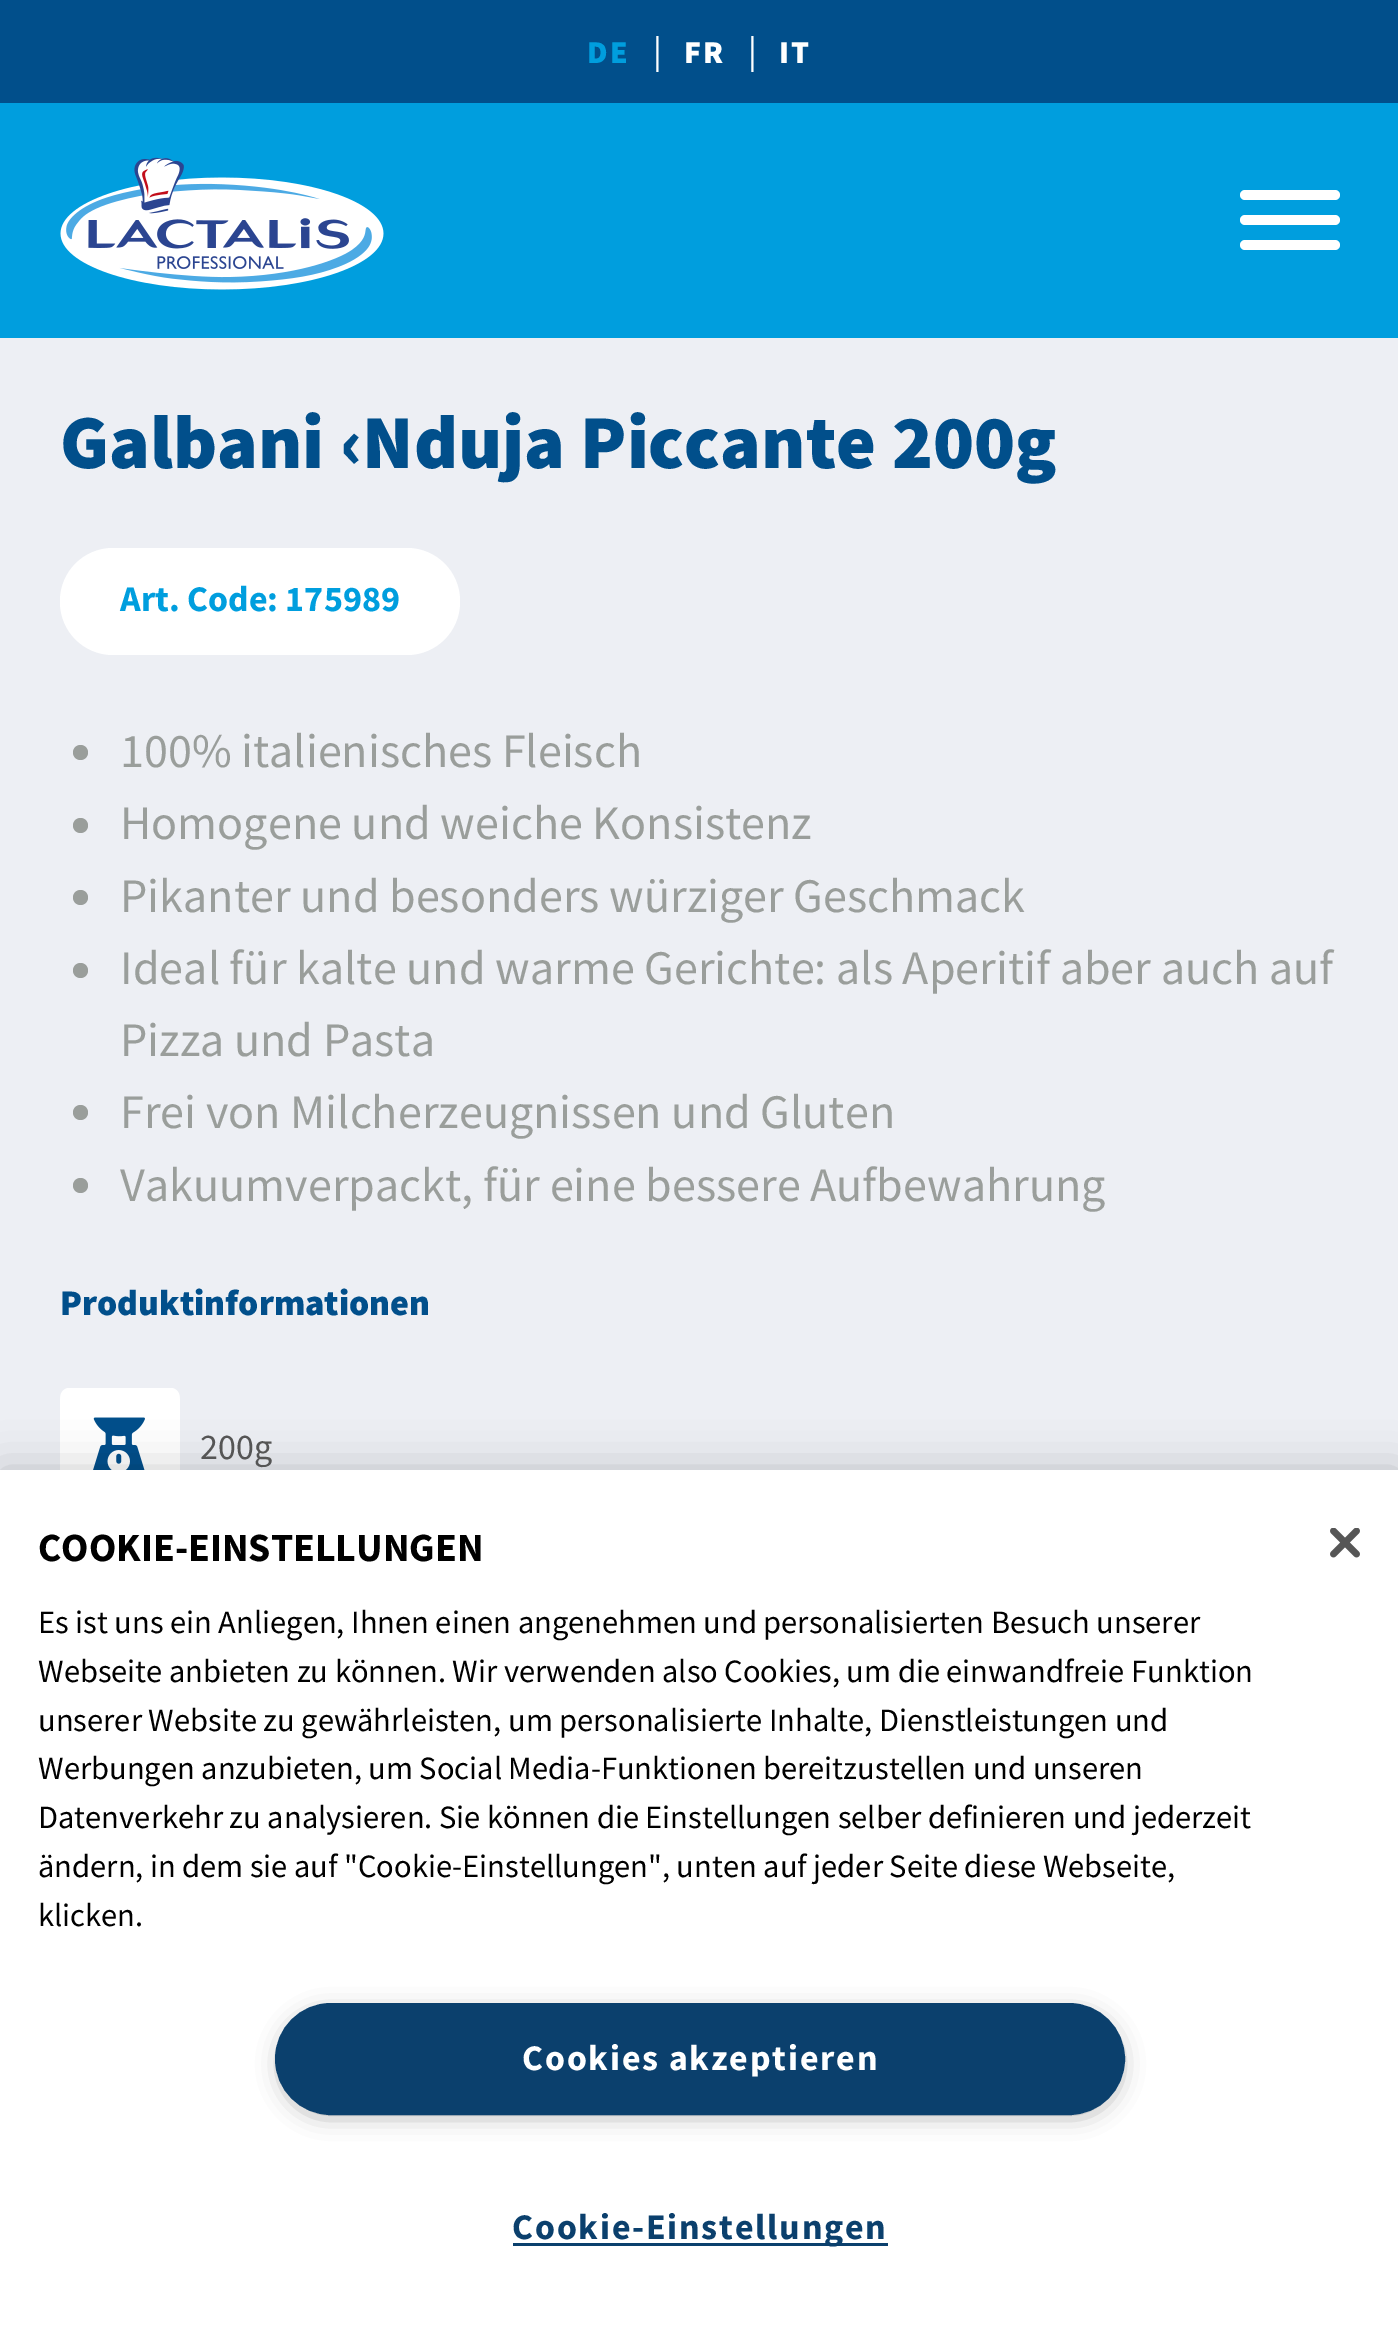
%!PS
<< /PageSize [1398 2351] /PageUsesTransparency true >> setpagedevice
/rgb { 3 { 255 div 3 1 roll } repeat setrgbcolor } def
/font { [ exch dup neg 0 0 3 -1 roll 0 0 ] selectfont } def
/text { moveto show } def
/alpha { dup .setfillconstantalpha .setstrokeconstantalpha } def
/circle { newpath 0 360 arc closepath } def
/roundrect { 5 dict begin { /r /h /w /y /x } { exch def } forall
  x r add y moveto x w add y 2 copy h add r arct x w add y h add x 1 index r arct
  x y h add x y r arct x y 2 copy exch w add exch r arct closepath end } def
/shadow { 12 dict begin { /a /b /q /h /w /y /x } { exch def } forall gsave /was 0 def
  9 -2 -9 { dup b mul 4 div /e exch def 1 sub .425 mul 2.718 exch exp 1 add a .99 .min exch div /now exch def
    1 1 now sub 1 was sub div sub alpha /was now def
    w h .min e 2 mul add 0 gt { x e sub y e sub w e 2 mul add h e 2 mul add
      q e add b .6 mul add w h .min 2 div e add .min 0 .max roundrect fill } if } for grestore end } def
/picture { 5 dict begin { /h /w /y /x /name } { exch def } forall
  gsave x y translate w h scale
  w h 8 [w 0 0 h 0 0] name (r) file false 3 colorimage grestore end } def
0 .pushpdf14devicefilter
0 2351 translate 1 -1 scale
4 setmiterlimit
237 239 244 rgb
0 0 1398 2351 rectfill
0 158 222 rgb
0 103 1398 235 rectfill
1 79 139 rgb
0 0 1398 103 rectfill
(img_01.rgb) 60 157 324 133 picture
255 255 255 rgb
1240 215 100 10 5 roundrect fill
1240 190 100 10 5 roundrect fill
1240 240 100 10 5 roundrect fill
60 548 400 107 53 roundrect fill
154 158 155 rgb
80.5 752.5 7.5 circle fill
80.5 825.5 7.5 circle fill
80.5 897.5 7.5 circle fill
80.5 970.5 7.5 circle fill
80.5 1112.5 7.5 circle fill
80.5 1185.5 7.5 circle fill
(img_02.rgb) 60 1388 120 82 picture
0 0 0 rgb
0 1470 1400 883 0 22.5 0.2 shadow
255 255 255 rgb
0 1470 1398 881 rectfill
153 153 153 rgb
283 2015 835 98 49 12.5 1 shadow
11 64 109 rgb
276.5 2004.5 847 109 54.5 roundrect gsave fill grestore
3 setlinewidth
stroke
513 2243 375 3 rectfill
(img_03.rgb) 1330 1528 30 30 picture
/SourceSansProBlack-Black 32 font
0 158 222 rgb
587 63 moveto 2 0 (DE) ashow
/SourceSansPro-Regular 36.1 font
255 255 255 rgb
(|) 653 63 text
/SourceSansProBlack-Black 32 font
684 63 moveto 2 0 (FR) ashow
/SourceSansPro-Regular 36.1 font
(|) 748 63 text
/SourceSansProBlack-Black 32 font
779 63 moveto 2 0 (IT) ashow
/SourceSansProBlack-Black 76.25 font
1 79 139 rgb
(Galbani ‹Nduja Piccante 200g) 60 468 text
/SourceSansPro-Bold 36.1 font
0 158 222 rgb
(Art. Code: 175989) 120 611 text
/SourceSansPro-Regular 48.15 font
154 158 155 rgb
(100% italienisches Fleisch) 120 767 text
(Homogene und weiche Konsistenz) 120 839 text
(Pikanter und besonders würziger Geschmack) 120 912 text
(Ideal für kalte und warme Gerichte: als Aperitif aber auch auf) 120 984 text
(Pizza und Pasta) 120 1056 text
(Frei von Milcherzeugnissen und Gluten) 120 1128 text
(Vakuumverpackt, für eine bessere Aufbewahrung) 120 1201 text
/SourceSansProBlack-Black 36.1 font
1 79 139 rgb
(Produktinformationen) 60 1315 text
/SourceSansPro-Regular 36.1 font
85 85 85 rgb
(200g) 200 1459 text
/SourceSansPro-Bold 40 font
0 0 0 rgb
(COOKIE-EINSTELLUNGEN) 38 1561 text
/SourceSansPro-Regular 32.5 font
(Es ist uns ein Anliegen, Ihnen einen angenehmen und personalisierten Besuch unserer) 38 1633 text
(Webseite anbieten zu können. Wir verwenden also Cookies, um die einwandfreie Funktion) 38 1682 text
(unserer Website zu gewährleisten, um personalisierte Inhalte, Dienstleistungen und) 38 1731 text
(Werbungen anzubieten, um Social Media-Funktionen bereitzustellen und unseren) 38 1779 text
(Datenverkehr zu analysieren. Sie können die Einstellungen selber definieren und jederzeit) 38 1828 text
(ändern, in dem sie auf "Cookie-Einstellungen", unten auf jeder Seite diese Webseite,) 38 1877 text
(klicken.) 38 1926 text
/SourceSansPro-Bold 36 font
255 255 255 rgb
522 2070 moveto 1.8 0 (Cookies akzeptieren) ashow
11 64 109 rgb
512 2239 moveto 1.8 0 (Cookie-Einstellungen) ashow
.poppdf14devicefilter showpage
